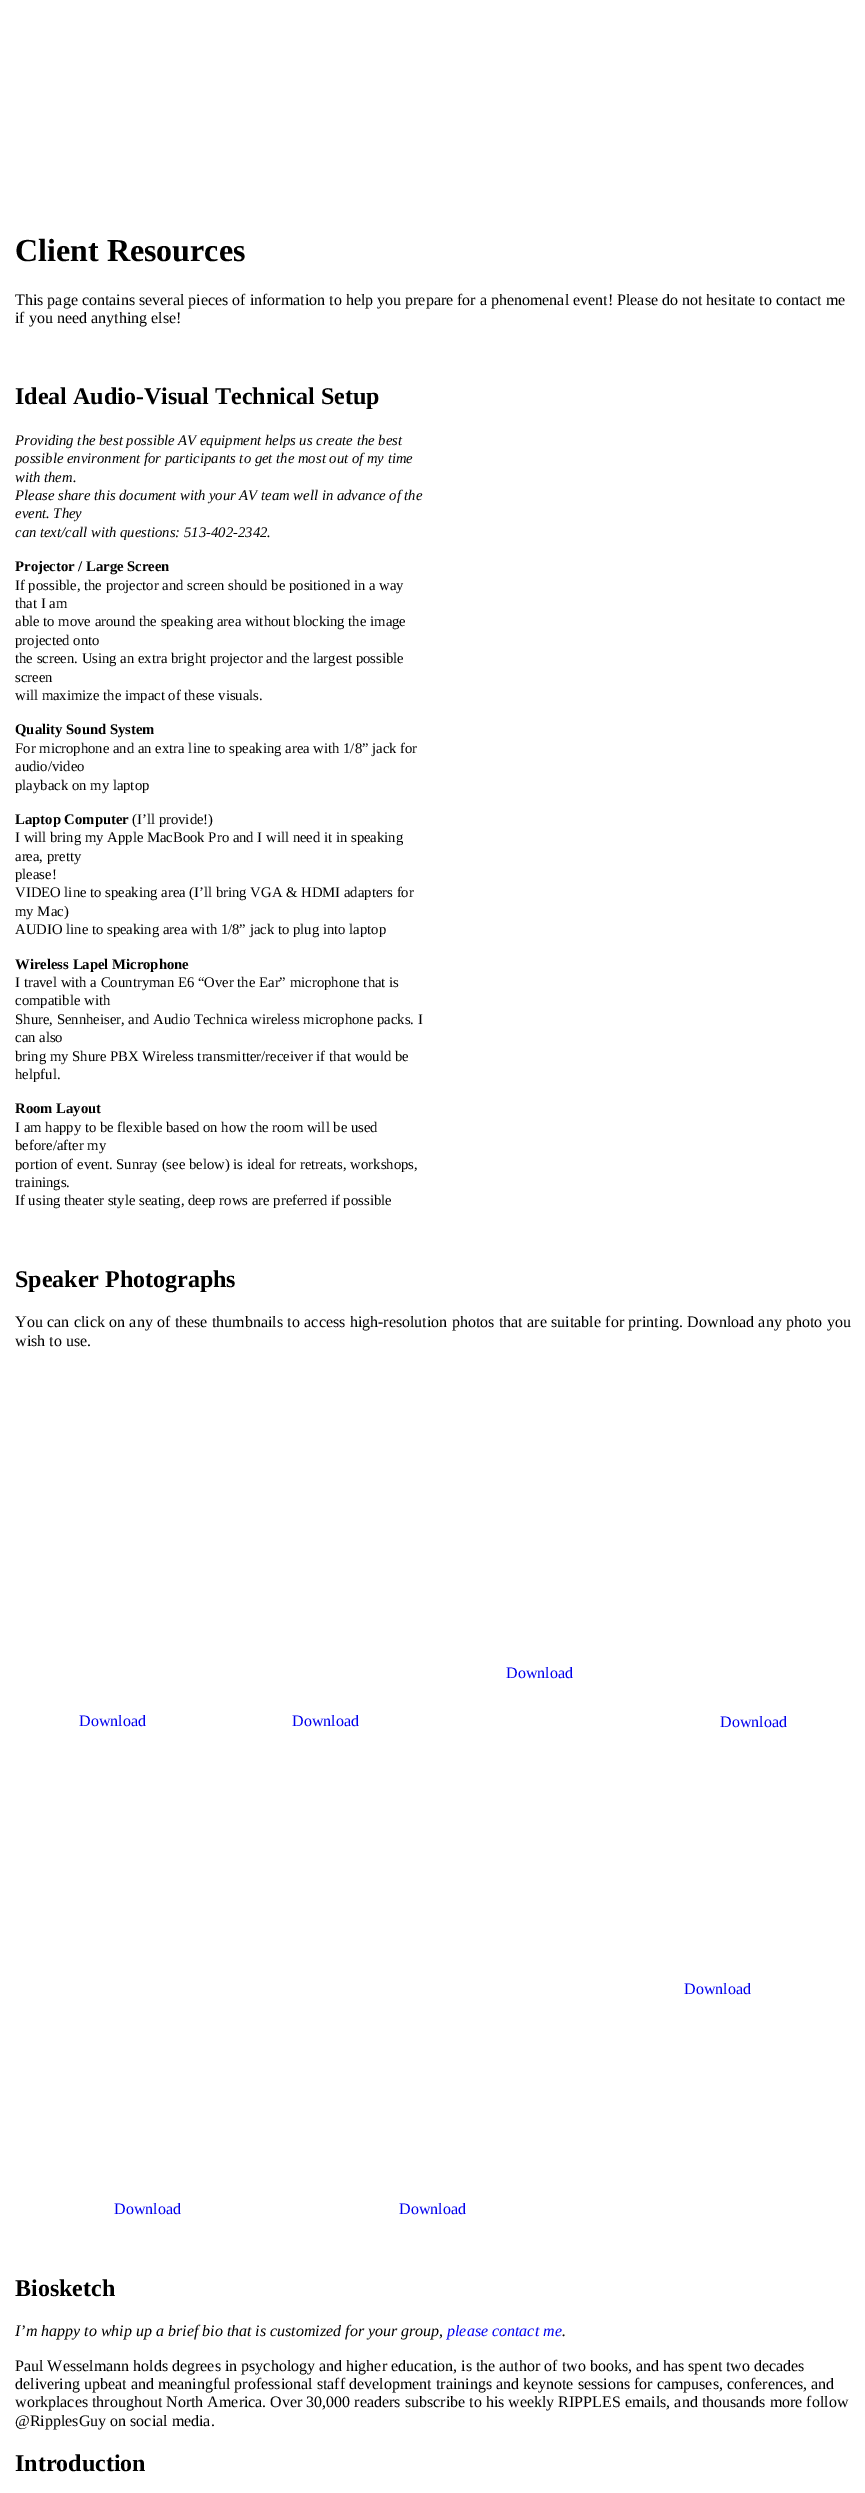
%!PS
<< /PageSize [865 2493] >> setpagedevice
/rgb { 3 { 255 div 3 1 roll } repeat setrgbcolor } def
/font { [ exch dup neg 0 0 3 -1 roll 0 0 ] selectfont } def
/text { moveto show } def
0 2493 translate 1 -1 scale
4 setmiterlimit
255 255 255 rgb
0 0 865 2493 rectfill
/LiberationSerif-Bold 32 font
0 0 0 rgb
(Client Resources) 15 261 text
/LiberationSerif-Regular 16 font
(This page contains several pieces of information to help you prepare for a phenomenal event! Please do not hesitate to contact me) 15 305 text
(if you need anything else!) 15 323 text
/LiberationSerif-Bold 24 font
(Ideal Audio-Visual Technical Setup) 15 404 text
/LiberationSerif-Italic 14.7 font
(Providing the best possible AV equipment helps us create the best) 15 445 text
(possible environment for participants to get the most out of my time) 15 463 text
(with them.) 15 482 text
(Please share this document with your AV team well in advance of the) 15 500 text
(event. They) 15 518 text
(can text/call with questions: 513-402-2342.) 15 537 text
/LiberationSerif-Bold 14.7 font
(Projector / Large Screen) 15 571 text
/LiberationSerif-Regular 14.7 font
(If possible, the projector and screen should be positioned in a way) 15 590 text
(that I am) 15 608 text
(able to move around the speaking area without blocking the image) 15 626 text
(projected onto) 15 645 text
(the screen. Using an extra bright projector and the largest possible) 15 663 text
(screen) 15 682 text
(will maximize the impact of these visuals.) 15 700 text
/LiberationSerif-Bold 14.7 font
(Quality Sound System) 15 734 text
/LiberationSerif-Regular 14.7 font
(For microphone and an extra line to speaking area with 1/8” jack for) 15 753 text
(audio/video) 15 771 text
(playback on my laptop) 15 790 text
/LiberationSerif-Bold 14.7 font
(Laptop Computer) 15 824 text
/LiberationSerif-Regular 14.7 font
(\(I’ll provide!\)) 132 824 text
(I will bring my Apple MacBook Pro and I will need it in speaking) 15 842 text
(area, pretty) 15 861 text
(please!) 15 879 text
(VIDEO line to speaking area \(I’ll bring VGA & HDMI adapters for) 15 897 text
(my Mac\)) 15 916 text
(AUDIO line to speaking area with 1/8” jack to plug into laptop) 15 934 text
/LiberationSerif-Bold 14.7 font
(Wireless Lapel Microphone) 15 969 text
/LiberationSerif-Regular 14.7 font
(I travel with a Countryman E6 “Over the Ear” microphone that is) 15 987 text
(compatible with) 15 1005 text
(Shure, Sennheiser, and Audio Technica wireless microphone packs. I) 15 1024 text
(can also) 15 1042 text
(bring my Shure PBX Wireless transmitter/receiver if that would be) 15 1061 text
(helpful.) 15 1079 text
/LiberationSerif-Bold 14.7 font
(Room Layout) 15 1113 text
/LiberationSerif-Regular 14.7 font
(I am happy to be flexible based on how the room will be used) 15 1132 text
(before/after my) 15 1150 text
(portion of event. Sunray \(see below\) is ideal for retreats, workshops,) 15 1169 text
(trainings.) 15 1187 text
(If using theater style seating, deep rows are preferred if possible) 15 1205 text
/LiberationSerif-Bold 24 font
(Speaker Photographs) 15 1287 text
/LiberationSerif-Regular 16 font
15 1327 moveto 0.4 0 32 (You can click on any of these thumbnails to access high-resolution photos that are suitable for printing. Download any photo you) widthshow
(wish to use.) 15 1346 text
0 0 238 rgb
(Download) 506 1678 text
(Download) 79 1726 text
(Download) 292 1726 text
(Download) 720 1727 text
(Download) 684 1994 text
(Download) 114 2214 text
(Download) 399 2214 text
/LiberationSerif-Bold 24 font
0 0 0 rgb
(Biosketch) 15 2296 text
/LiberationSerif-Italic 16 font
(I’m happy to whip up a brief bio that is customized for your group,) 15 2336 text
0 0 238 rgb
(please contact me) 447 2336 text
0 0 0 rgb
(.) 562 2336 text
/LiberationSerif-Regular 16 font
(Paul Wesselmann holds degrees in psychology and higher education, is the author of two books, and has spent two decades) 15 2371 text
(delivering upbeat and meaningful professional staff development trainings and keynote sessions for campuses, conferences, and) 15 2389 text
(workplaces throughout North America. Over 30,000 readers subscribe to his weekly RIPPLES emails, and thousands more follow) 15 2407 text
(@RipplesGuy on social media.) 15 2426 text
/LiberationSerif-Bold 24 font
(Introduction) 15 2471 text
showpage
